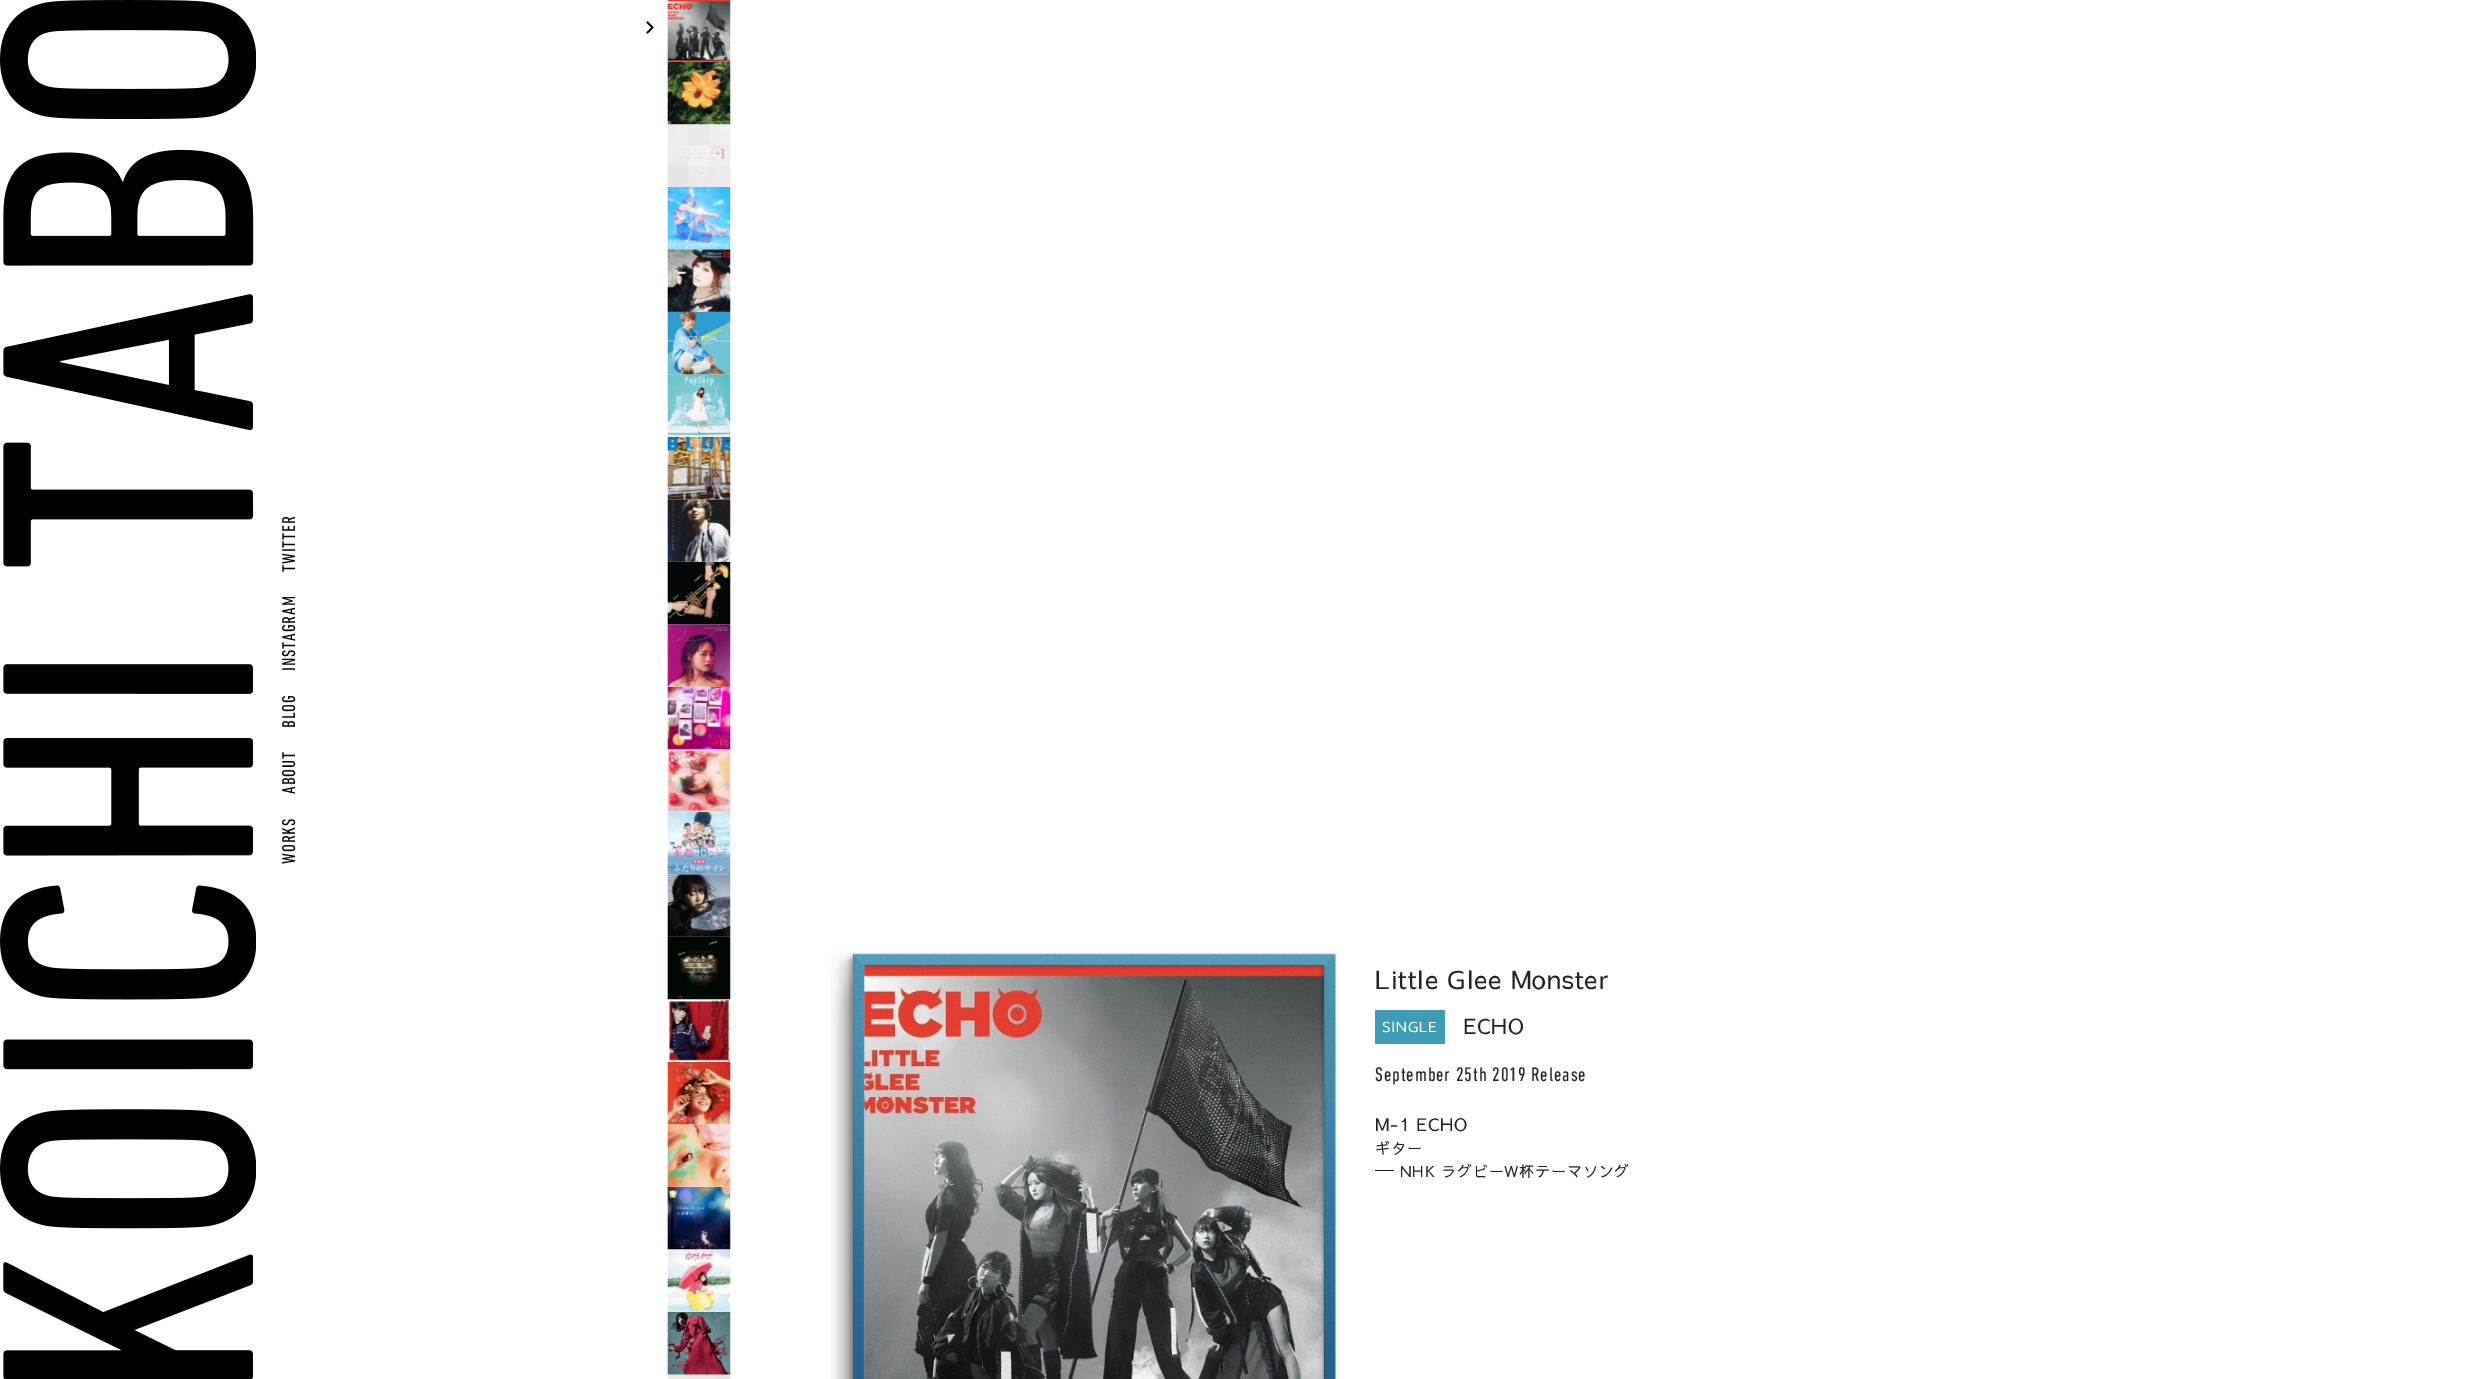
%!PS
<< /PageSize [2467 1379] >> setpagedevice
/rgb { 3 { 255 div 3 1 roll } repeat setrgbcolor } def
/font { [ exch dup neg 0 0 3 -1 roll 0 0 ] selectfont } def
/picture { 5 dict begin { /h /w /y /x /name } { exch def } forall
  gsave x y translate w h scale
  w h 8 [w 0 0 h 0 0] name (r) file false 3 colorimage grestore end } def
0 1379 translate 1 -1 scale
4 setmiterlimit
255 255 255 rgb
0 0 2467 1379 rectfill
(img_01.rgb) 0 0 256 1379 picture
(img_02.rgb) 646 21 8 13 picture
(img_03.rgb) 667 0 64 62 picture
(img_04.rgb) 667 62 64 63 picture
(img_05.rgb) 667 124 64 63 picture
(img_06.rgb) 667 187 64 63 picture
(img_07.rgb) 667 249 64 63 picture
(img_08.rgb) 667 312 64 63 picture
(img_09.rgb) 667 374 64 63 picture
(img_10.rgb) 667 437 64 63 picture
(img_11.rgb) 667 499 64 63 picture
(img_12.rgb) 667 562 64 63 picture
(img_13.rgb) 667 624 64 63 picture
(img_14.rgb) 667 687 64 63 picture
(img_15.rgb) 667 749 64 63 picture
(img_16.rgb) 667 812 64 63 picture
(img_17.rgb) 667 874 64 63 picture
(img_18.rgb) 667 937 64 63 picture
(img_19.rgb) 667 999 64 63 picture
(img_20.rgb) 667 1062 64 63 picture
(img_21.rgb) 667 1124 64 63 picture
(img_22.rgb) 667 1187 64 63 picture
(img_23.rgb) 667 1249 64 63 picture
(img_24.rgb) 667 1312 64 63 picture
(img_25.rgb) 667 1375 64 4 picture
(img_27.rgb) 864 965 460 414 picture
(img_26.rgb) 830 950 507 429 picture
62 156 182 rgb
1375 1010 70 34 rectfill
34 34 34 rgb
1375 1170 19 1 rectfill
/DINNext-Regular 18.75 font
0 0 0 rgb
gsave 295 572 translate -90 rotate 0 0 moveto 0.9 0 (TWITTER) ashow grestore
gsave 295 671 translate -90 rotate 0 0 moveto 0.9 0 (INSTAGRAM) ashow grestore
gsave 295 728 translate -90 rotate 0 0 moveto 0.9 0 (BLOG) ashow grestore
gsave 295 794 translate -90 rotate 0 0 moveto 0.9 0 (ABOUT) ashow grestore
gsave 295 864 translate -90 rotate 0 0 moveto 0.9 0 (WORKS) ashow grestore
/SawarabiGothic-Regular 25 font
33 37 41 rgb
1375 989 moveto 0.9 0 (Little Glee Monster) ashow
/SawarabiGothic-Regular 14 font
255 255 255 rgb
1382 1032 moveto 0.9 0 (SINGLE) ashow
/SawarabiGothic-Regular 21 font
33 37 41 rgb
1463 1034 moveto 0.9 0 (ECHO) ashow
/DINNext-Regular 20 font
1375 1081 moveto 0.9 0 (September 25th 2019 Release) ashow
/SawarabiGothic-Regular 17.5 font
1375 1131 moveto 0.9 0 (M-1 ECHO) ashow
/SawarabiGothic-Regular 15 font
34 34 34 rgb
1375 1154 moveto 0.9 0 (ギター) ashow
1400 1177 moveto 0.9 0 (NHK ラグビーW杯テーマソング) ashow
showpage
